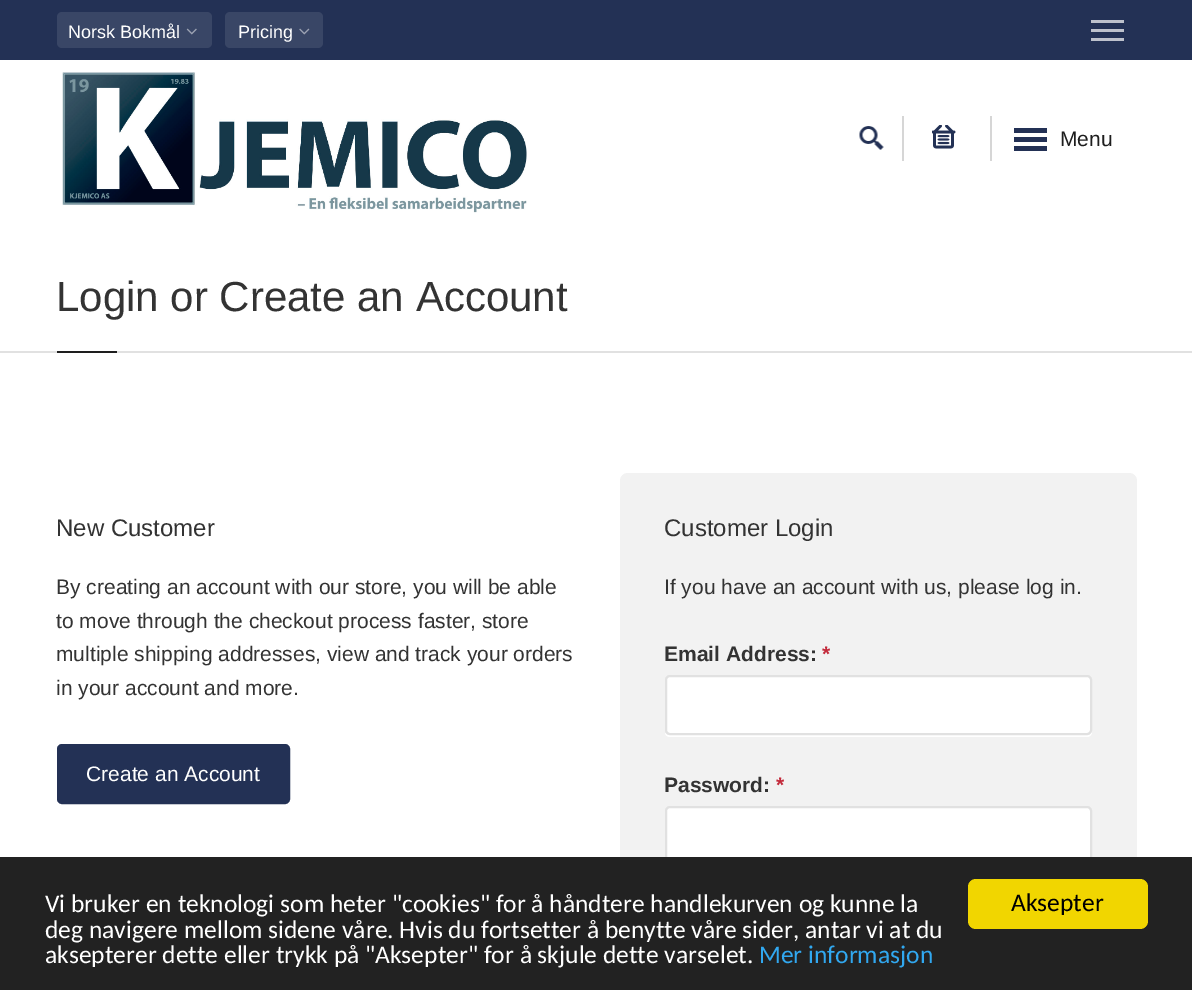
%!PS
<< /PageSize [1192 990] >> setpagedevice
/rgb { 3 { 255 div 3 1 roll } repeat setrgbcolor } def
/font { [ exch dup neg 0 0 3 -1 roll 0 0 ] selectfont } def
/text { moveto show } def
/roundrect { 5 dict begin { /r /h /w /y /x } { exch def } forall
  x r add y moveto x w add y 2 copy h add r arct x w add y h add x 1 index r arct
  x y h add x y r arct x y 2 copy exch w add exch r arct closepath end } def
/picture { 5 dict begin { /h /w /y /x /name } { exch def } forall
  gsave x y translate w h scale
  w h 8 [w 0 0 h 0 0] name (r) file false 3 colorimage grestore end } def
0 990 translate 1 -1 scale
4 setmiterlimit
255 255 255 rgb
0 0 1192 990 rectfill
35 49 85 rgb
0 0 1192 60 rectfill
57 70 102 rgb
57 12 155 36 5 roundrect fill
(img_01.rgb) 186 28 11 7 picture
225 12 98 36 5 roundrect fill
(img_02.rgb) 299 28 11 7 picture
189 193 204 rgb
1091 20 33 3 rectfill
1091 29 33 3 rectfill
1091 38 33 3 rectfill
(img_03.rgb) 62 72 465 141 picture
214 214 214 rgb
902 116 2 45 rectfill
(img_04.rgb) 859 126 25 24 picture
(img_05.rgb) 932 125 24 24 picture
990 116 2 45 rectfill
35 49 85 rgb
1014 128 33 5 rectfill
1014 137 33 5 rectfill
1014 146 33 5 rectfill
225 225 225 rgb
0 351 1192 2 rectfill
30 30 30 rgb
57 351 60 2 rectfill
35 49 85 rgb
58 745 231 58 4 roundrect gsave fill grestore
2 setlinewidth
stroke
242 242 242 rgb
620 473 517 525 8 roundrect fill
255 255 255 rgb
665 733 moveto 0 2 2 4 5 4 rcurveto 417 0 rlineto 3 0 5 -2 5 -5 rcurveto 0 -2 rlineto 0 3 -2 5 -4 5 rcurveto -419 0 rlineto -2 0 -3 -1 -4 -2 rcurveto closepath fill
666 676 425 58 4 roundrect gsave fill grestore
225 225 225 rgb
stroke
255 255 255 rgb
666 807 425 58 4 roundrect gsave fill grestore
225 225 225 rgb
stroke
34 34 34 rgb
0 857 1192 133 rectfill
241 214 0 rgb
968 879 180 50 8 roundrect fill
/Arimo-Regular 18 font
255 255 255 rgb
(Norsk Bokmål) 68 38 text
(Pricing) 238 38 text
/Arimo-Regular 21 font
30 30 30 rgb
(Menu) 1060 146 text
/Arimo-Regular 42 font
51 51 51 rgb
(Login or Create an Account) 56 311 text
/Arimo-Regular 24 font
(New Customer) 56 536 text
/Arimo-Regular 21 font
(By creating an account with our store, you will be able) 56 594 text
(to move through the checkout process faster, store) 56 628 text
(multiple shipping addresses, view and track your orders) 56 661 text
(in your account and more.) 56 695 text
255 255 255 rgb
(Create an Account) 86 781 text
/Arimo-Regular 24 font
51 51 51 rgb
(Customer Login) 664 536 text
/Arimo-Regular 21 font
(If you have an account with us, please log in.) 664 594 text
/Arimo-Bold 21 font
(Email Address:) 664 661 text
195 41 58 rgb
(*) 822 661 text
51 51 51 rgb
(Password:) 664 792 text
195 41 58 rgb
(*) 776 792 text
/Carlito-Regular 25.5 font
255 255 255 rgb
(Vi bruker en teknologi som heter "cookies" for å håndtere handlekurven og kunne la) 45 912 text
(deg navigere mellom sidene våre. Hvis du fortsetter å benytte våre sider, antar vi at du) 45 938 text
(aksepterer dette eller trykk på "Aksepter" for å skjule dette varselet.) 45 963 text
49 168 240 rgb
(Mer informasjon) 759 963 text
0 0 0 rgb
(Aksepter) 1011 911 text
showpage
